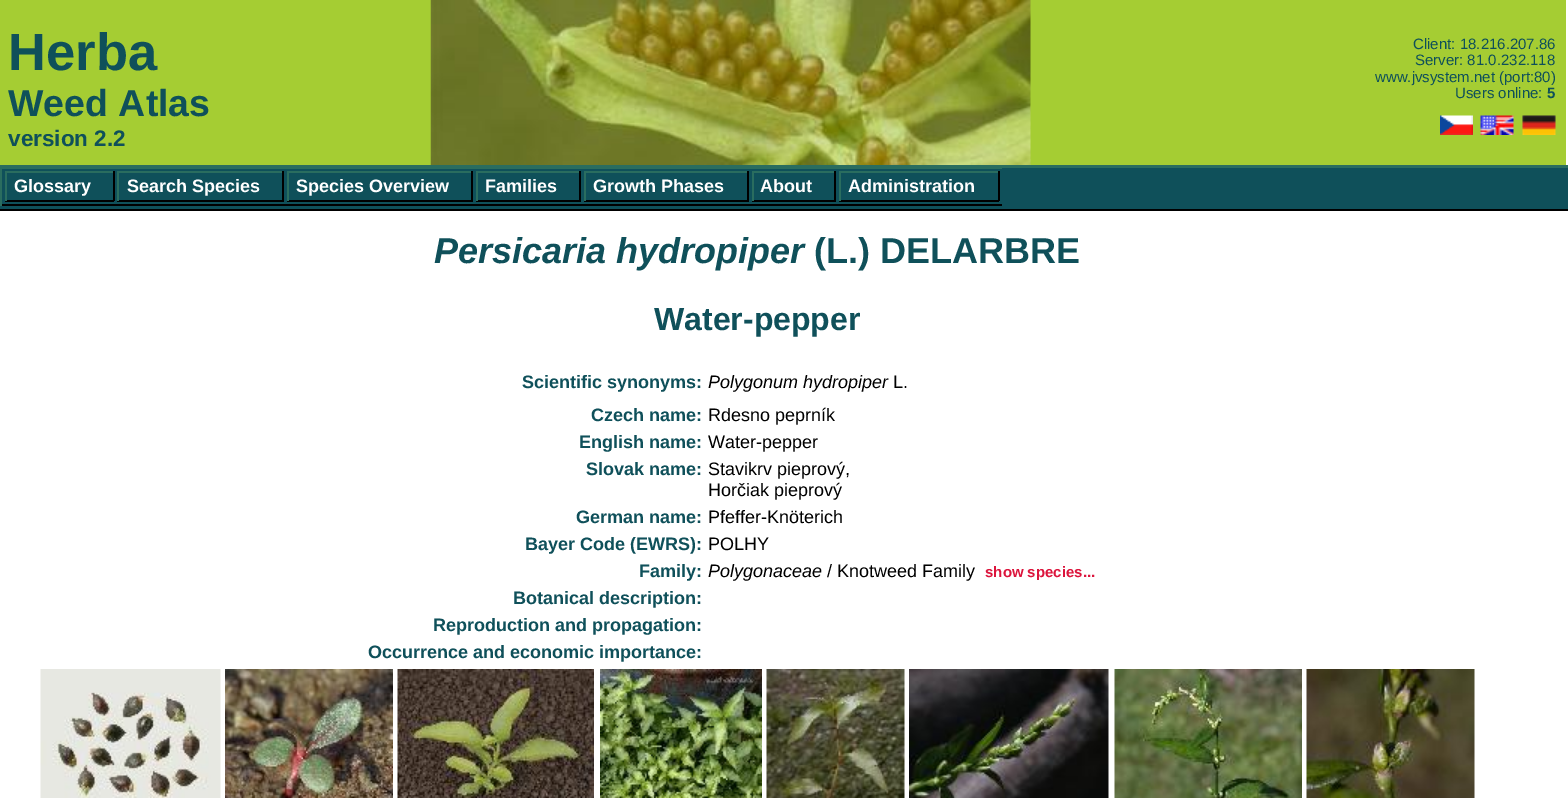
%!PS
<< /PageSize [1568 798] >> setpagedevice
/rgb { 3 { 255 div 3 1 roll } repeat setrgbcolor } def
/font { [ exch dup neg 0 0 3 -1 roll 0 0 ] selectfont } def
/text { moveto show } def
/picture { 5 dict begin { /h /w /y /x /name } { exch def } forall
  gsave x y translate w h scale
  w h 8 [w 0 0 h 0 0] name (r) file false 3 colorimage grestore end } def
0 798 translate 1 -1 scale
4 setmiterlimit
255 255 255 rgb
0 0 1568 798 rectfill
165 205 51 rgb
0 0 1566 165 rectfill
(img_01.rgb) 430 0 601 165 picture
(img_02.rgb) 1440 115 33 20 picture
(img_03.rgb) 1480 115 34 20 picture
(img_04.rgb) 1522 115 34 20 picture
15 80 90 rgb
0 168 1568 41 rectfill
42 109 95 rgb
0 165 1568 3 rectfill
0 0 0 rgb
0 209 1568 2 rectfill
42 109 95 rgb
0 168 1002 1 rectfill
0 0 0 rgb
0 204 1002 2 rectfill
42 109 95 rgb
0 167 2 39 rectfill
5 171 109 2 rectfill
0 0 0 rgb
113 171 2 30 rectfill
5 200 109 2 rectfill
42 109 95 rgb
5 171 2 30 rectfill
117 171 167 2 rectfill
0 0 0 rgb
282 171 2 30 rectfill
117 200 167 2 rectfill
42 109 95 rgb
117 171 2 30 rectfill
287 171 186 2 rectfill
0 0 0 rgb
471 171 2 30 rectfill
287 200 186 2 rectfill
42 109 95 rgb
287 171 2 30 rectfill
476 171 105 2 rectfill
0 0 0 rgb
579 171 2 30 rectfill
476 200 105 2 rectfill
42 109 95 rgb
476 171 2 30 rectfill
584 171 165 2 rectfill
0 0 0 rgb
747 171 2 30 rectfill
584 200 165 2 rectfill
42 109 95 rgb
584 171 2 30 rectfill
752 171 84 2 rectfill
0 0 0 rgb
834 171 2 30 rectfill
752 200 84 2 rectfill
42 109 95 rgb
752 171 2 30 rectfill
839 171 160 2 rectfill
0 0 0 rgb
998 171 2 30 rectfill
839 200 160 2 rectfill
42 109 95 rgb
839 171 2 30 rectfill
(img_05.rgb) 40 669 181 129 picture
(img_06.rgb) 225 669 168 129 picture
(img_07.rgb) 397 669 197 129 picture
(img_08.rgb) 600 669 162 129 picture
(img_09.rgb) 766 669 139 129 picture
(img_10.rgb) 909 669 200 129 picture
(img_11.rgb) 1114 669 188 129 picture
(img_12.rgb) 1306 669 169 129 picture
/LiberationSans-Bold 52.5 font
15 80 90 rgb
(Herba) 8 70 text
/LiberationSans-Bold 37.5 font
(Weed Atlas) 8 116 text
/LiberationSans-Bold 22.5 font
(version 2.2) 8 146 text
/LiberationSans-Regular 15 font
(Client: 18.216.207.86) 1413 49 text
(Server: 81.0.232.118) 1415 65 text
(www.jvsystem.net \(port:80\)) 1375 82 text
(Users online:) 1455 98 text
/LiberationSans-Bold 15 font
(5) 1547 98 text
/LiberationSans-Bold 18 font
255 255 255 rgb
(Glossary) 14 192 text
(Search Species) 127 192 text
(Species Overview) 296 192 text
(Families) 485 192 text
(Growth Phases) 593 192 text
(About) 760 192 text
(Administration) 848 192 text
/LiberationSans-BoldItalic 36 font
15 80 90 rgb
(Persicaria hydropiper) 434 263 text
/LiberationSans-Bold 36 font
(\(L.\) DELARBRE) 814 263 text
/LiberationSans-Bold 32 font
(Water-pepper) 654 330 text
/LiberationSans-Bold 18 font
(Scientific synonyms:) 522 388 text
/LiberationSans-Italic 18 font
0 0 0 rgb
(Polygonum hydropiper) 708 388 text
/LiberationSans-Regular 18 font
(L.) 893 388 text
/LiberationSans-Bold 18 font
15 80 90 rgb
(Czech name:) 591 421 text
/LiberationSans-Regular 18 font
0 0 0 rgb
(Rdesno peprník) 708 421 text
/LiberationSans-Bold 18 font
15 80 90 rgb
(English name:) 579 448 text
/LiberationSans-Regular 18 font
0 0 0 rgb
(Water-pepper) 708 448 text
/LiberationSans-Bold 18 font
15 80 90 rgb
(Slovak name:) 586 475 text
/LiberationSans-Regular 18 font
0 0 0 rgb
(Stavikrv pieprový,) 708 475 text
(Horčiak pieprový) 708 496 text
/LiberationSans-Bold 18 font
15 80 90 rgb
(German name:) 576 523 text
/LiberationSans-Regular 18 font
0 0 0 rgb
(Pfeffer-Knöterich) 708 523 text
/LiberationSans-Bold 18 font
15 80 90 rgb
(Bayer Code \(EWRS\):) 525 550 text
/LiberationSans-Regular 18 font
0 0 0 rgb
(POLHY) 708 550 text
/LiberationSans-Bold 18 font
15 80 90 rgb
(Family:) 639 577 text
/LiberationSans-Italic 18 font
0 0 0 rgb
(Polygonaceae) 708 577 text
/LiberationSans-Regular 18 font
(/ Knotweed Family) 827 577 text
/LiberationSans-Bold 15 font
220 20 60 rgb
(show species...) 985 577 text
/LiberationSans-Bold 18 font
15 80 90 rgb
(Botanical description:) 513 604 text
(Reproduction and propagation:) 433 631 text
(Occurrence and economic importance:) 368 658 text
showpage
